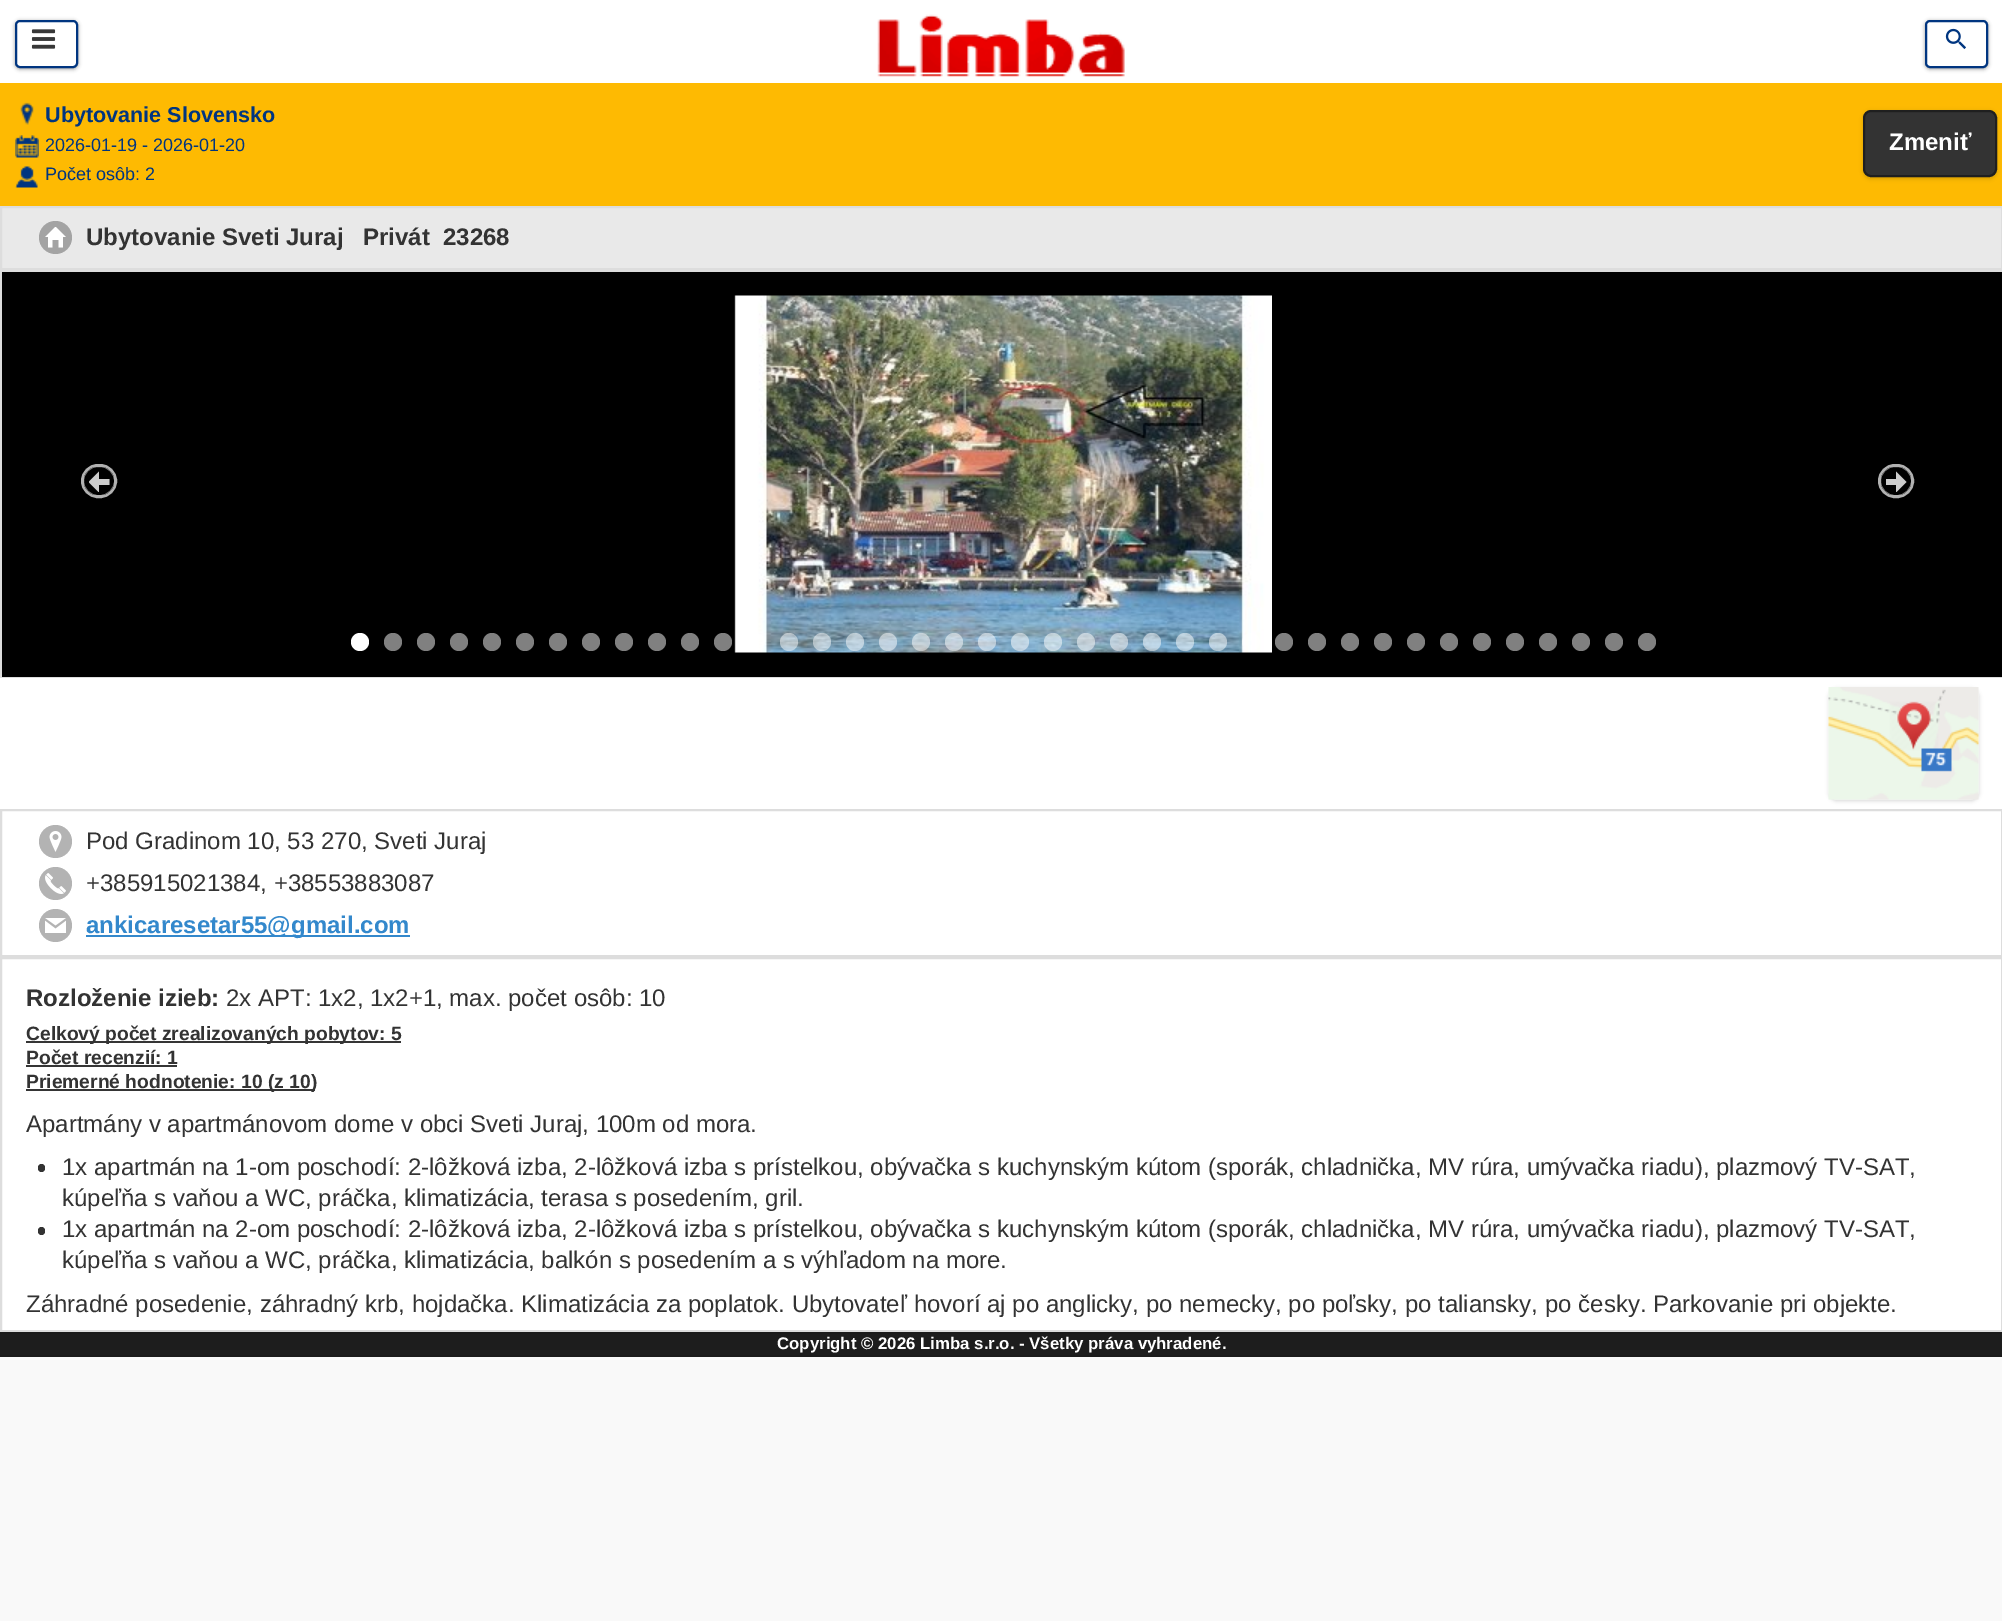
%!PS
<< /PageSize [2002 1621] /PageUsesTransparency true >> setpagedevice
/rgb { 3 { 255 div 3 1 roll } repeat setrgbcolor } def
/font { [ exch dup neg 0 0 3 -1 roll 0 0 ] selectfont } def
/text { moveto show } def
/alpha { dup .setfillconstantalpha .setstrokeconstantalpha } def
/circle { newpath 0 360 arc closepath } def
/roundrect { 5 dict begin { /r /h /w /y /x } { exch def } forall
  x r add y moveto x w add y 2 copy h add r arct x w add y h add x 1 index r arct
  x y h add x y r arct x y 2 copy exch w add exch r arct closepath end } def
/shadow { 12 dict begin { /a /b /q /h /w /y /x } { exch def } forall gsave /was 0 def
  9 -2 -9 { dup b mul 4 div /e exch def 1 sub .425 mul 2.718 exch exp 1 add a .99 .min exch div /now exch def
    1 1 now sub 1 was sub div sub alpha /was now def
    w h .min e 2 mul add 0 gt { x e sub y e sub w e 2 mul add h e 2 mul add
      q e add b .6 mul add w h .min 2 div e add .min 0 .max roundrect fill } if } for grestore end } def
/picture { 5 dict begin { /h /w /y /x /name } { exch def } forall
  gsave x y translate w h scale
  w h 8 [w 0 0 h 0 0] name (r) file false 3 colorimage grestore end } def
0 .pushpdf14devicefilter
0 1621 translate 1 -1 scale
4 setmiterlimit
249 249 249 rgb
0 0 2002 1621 rectfill
255 255 255 rgb
0 0 2002 83 rectfill
0 0 0 rgb
15 21 63 48 5 2 0.4 shadow
255 255 255 rgb
16 21 61 46 4 roundrect gsave fill grestore
0 53 128 rgb
2 setlinewidth
stroke
(img_01.rgb) 31 29 25 20 picture
(img_02.rgb) 877 14 248 63 picture
0 0 0 rgb
1925 21 63 48 5 2 0.4 shadow
255 255 255 rgb
1926 21 61 46 4 roundrect gsave fill grestore
0 53 128 rgb
stroke
(img_03.rgb) 1945 28 21 21 picture
254 186 2 rgb
0 83 2002 123 rectfill
(img_04.rgb) 20 102 14 23 picture
(img_05.rgb) 15 135 24 23 picture
(img_06.rgb) 15 166 23 22 picture
0 0 0 rgb
1863 111 134 68 8 2 0.15 shadow
51 51 51 rgb
1864 111 132 65 7 roundrect gsave fill grestore
31 31 31 rgb
stroke
233 233 233 rgb
1 207 moveto 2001 0 rlineto 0 62 rlineto -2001 0 rlineto closepath gsave fill grestore
221 221 221 rgb
stroke
163 163 163 rgb
55.5 237.5 16.5 circle fill
(img_07.rgb) 45 227 21 21 picture
221 221 221 rgb
1 271 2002 406 rectstroke
0 0 0 rgb
2 272 2000 405 rectfill
(img_08.rgb) 734 295 538 358 picture
177 177 177 rgb
3 setlinewidth
82.5 465.5 33 31 15.5 roundrect stroke
gsave
84 467 30 28 14 roundrect clip newpath
0.3 alpha
0 0 0 rgb
99.5 481.5 16.5 circle fill
grestore
gsave
89 471 21 21 rectclip
204 204 204 rgb
99 479 moveto 0 -7.5 rlineto -10.5 10.5 rlineto 10.5 10.5 rlineto 0 -7.5 rlineto 10.5 0 rlineto 0 -6 rlineto closepath fill
grestore
1879.5 465.5 33 31 15.5 roundrect stroke
gsave
1881 467 30 28 14 roundrect clip newpath
0.3 alpha
0 0 0 rgb
1896.5 481.5 16.5 circle fill
grestore
gsave
1886 471 21 21 rectclip
204 204 204 rgb
1906.5 482 moveto -10.5 -10.5 rlineto 0 7.5 rlineto -10.5 0 rlineto 0 6 rlineto 10.5 0 rlineto 0 7.5 rlineto closepath fill
grestore
255 255 255 rgb
360 642 9 circle fill
128 128 128 rgb
393 642 9 circle fill
426 642 9 circle fill
459 642 9 circle fill
492 642 9 circle fill
525 642 9 circle fill
558 642 9 circle fill
591 642 9 circle fill
624 642 9 circle fill
657 642 9 circle fill
690 642 9 circle fill
723 642 9 circle fill
0.5 alpha
255 255 255 rgb
756 642 9 circle fill
789 642 9 circle fill
822 642 9 circle fill
855 642 9 circle fill
888 642 9 circle fill
921 642 9 circle fill
954 642 9 circle fill
987 642 9 circle fill
1020 642 9 circle fill
1053 642 9 circle fill
1086 642 9 circle fill
1119 642 9 circle fill
1152 642 9 circle fill
1185 642 9 circle fill
1218 642 9 circle fill
1251 642 9 circle fill
1 alpha
128 128 128 rgb
1284 642 9 circle fill
1317 642 9 circle fill
1350 642 9 circle fill
1383 642 9 circle fill
1416 642 9 circle fill
1449 642 9 circle fill
1482 642 9 circle fill
1515 642 9 circle fill
1548 642 9 circle fill
1581 642 9 circle fill
1614 642 9 circle fill
1647 642 9 circle fill
255 255 255 rgb
0 678 2002 131 rectfill
0 0 0 rgb
1829 689 150 112 8 2 0.15 shadow
(img_09.rgb) 1828 687 151 113 picture
255 255 255 rgb
1 810 moveto 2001 0 rlineto 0 146 rlineto -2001 0 rlineto closepath gsave fill grestore
221 221 221 rgb
2 setlinewidth
stroke
179 179 179 rgb
55.5 841.5 16.5 circle fill
(img_10.rgb) 49 831 13 21 picture
55.5 883.5 16.5 circle fill
(img_11.rgb) 45 873 21 21 picture
55.5 925.5 16.5 circle fill
(img_12.rgb) 45 918 21 15 picture
51 136 204 rgb
86 935 324 2 rectfill
255 255 255 rgb
1 958 moveto 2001 0 rlineto 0 373 rlineto -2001 0 rlineto closepath gsave fill grestore
221 221 221 rgb
stroke
53 53 53 rgb
26 1041 375 2 rectfill
26 1065 151 2 rectfill
26 1089 289 2 rectfill
51 51 51 rgb
38 1164 7 8 3.5 roundrect fill
38 1227 7 8 3.5 roundrect fill
29 29 29 rgb
0 1334 2002 21 rectfill
27 27 27 rgb
0 1332 2002 2 rectfill
0 1355 2002 2 rectfill
/LiberationSans-Bold 21.6 font
0 53 128 rgb
(Ubytovanie Slovensko) 45 122 text
/LiberationSans-Regular 18 font
(2026-01-19 - 2026-01-20) 45 151 text
(Počet osôb: 2) 45 180 text
/LiberationSans-Bold 24 font
255 255 255 rgb
(Zmeniť) 1889 150 text
51 51 51 rgb
(Ubytovanie Sveti Juraj) 86 245 text
(Privát) 363 245 text
(23268) 443 245 text
/LiberationSans-Regular 24 font
(Pod Gradinom 10, 53 270, Sveti Juraj) 86 849 text
(+385915021384, +38553883087) 86 891 text
/LiberationSans-Bold 24 font
51 136 204 rgb
(ankicaresetar55@gmail.com) 86 933 text
51 51 51 rgb
(Rozloženie izieb:) 26 1006 text
/LiberationSans-Regular 24 font
(2x APT: 1x2, 1x2+1, max. počet osôb: 10) 226 1006 text
/LiberationSans-Bold 19.25 font
(Celkový počet zrealizovaných pobytov: 5) 26 1040 text
(Počet recenzií: 1) 26 1064 text
(Priemerné hodnotenie: 10 \(z 10\)) 26 1088 text
/LiberationSans-Regular 24 font
(Apartmány v apartmánovom dome v obci Sveti Juraj, 100m od mora.) 26 1132 text
(1x apartmán na 1-om poschodí: 2-lôžková izba, 2-lôžková izba s prístelkou, obývačka s kuchynským kútom \(sporák, chladnička, MV rúra, umývačka riadu\), plazmový TV-SAT,) 62 1175 text
(kúpeľňa s vaňou a WC, práčka, klimatizácia, terasa s posedením, gril.) 62 1206 text
(1x apartmán na 2-om poschodí: 2-lôžková izba, 2-lôžková izba s prístelkou, obývačka s kuchynským kútom \(sporák, chladnička, MV rúra, umývačka riadu\), plazmový TV-SAT,) 62 1237 text
(kúpeľňa s vaňou a WC, práčka, klimatizácia, balkón s posedením a s výhľadom na more.) 62 1268 text
(Záhradné posedenie, záhradný krb, hojdačka. Klimatizácia za poplatok. Ubytovateľ hovorí aj po anglicky, po nemecky, po poľsky, po taliansky, po česky. Parkovanie pri objekte.) 26 1312 text
/LiberationSans-Bold 16.8 font
255 255 255 rgb
(Copyright © 2026 Limba s.r.o. - Všetky práva vyhradené.) 777 1349 text
.poppdf14devicefilter showpage
